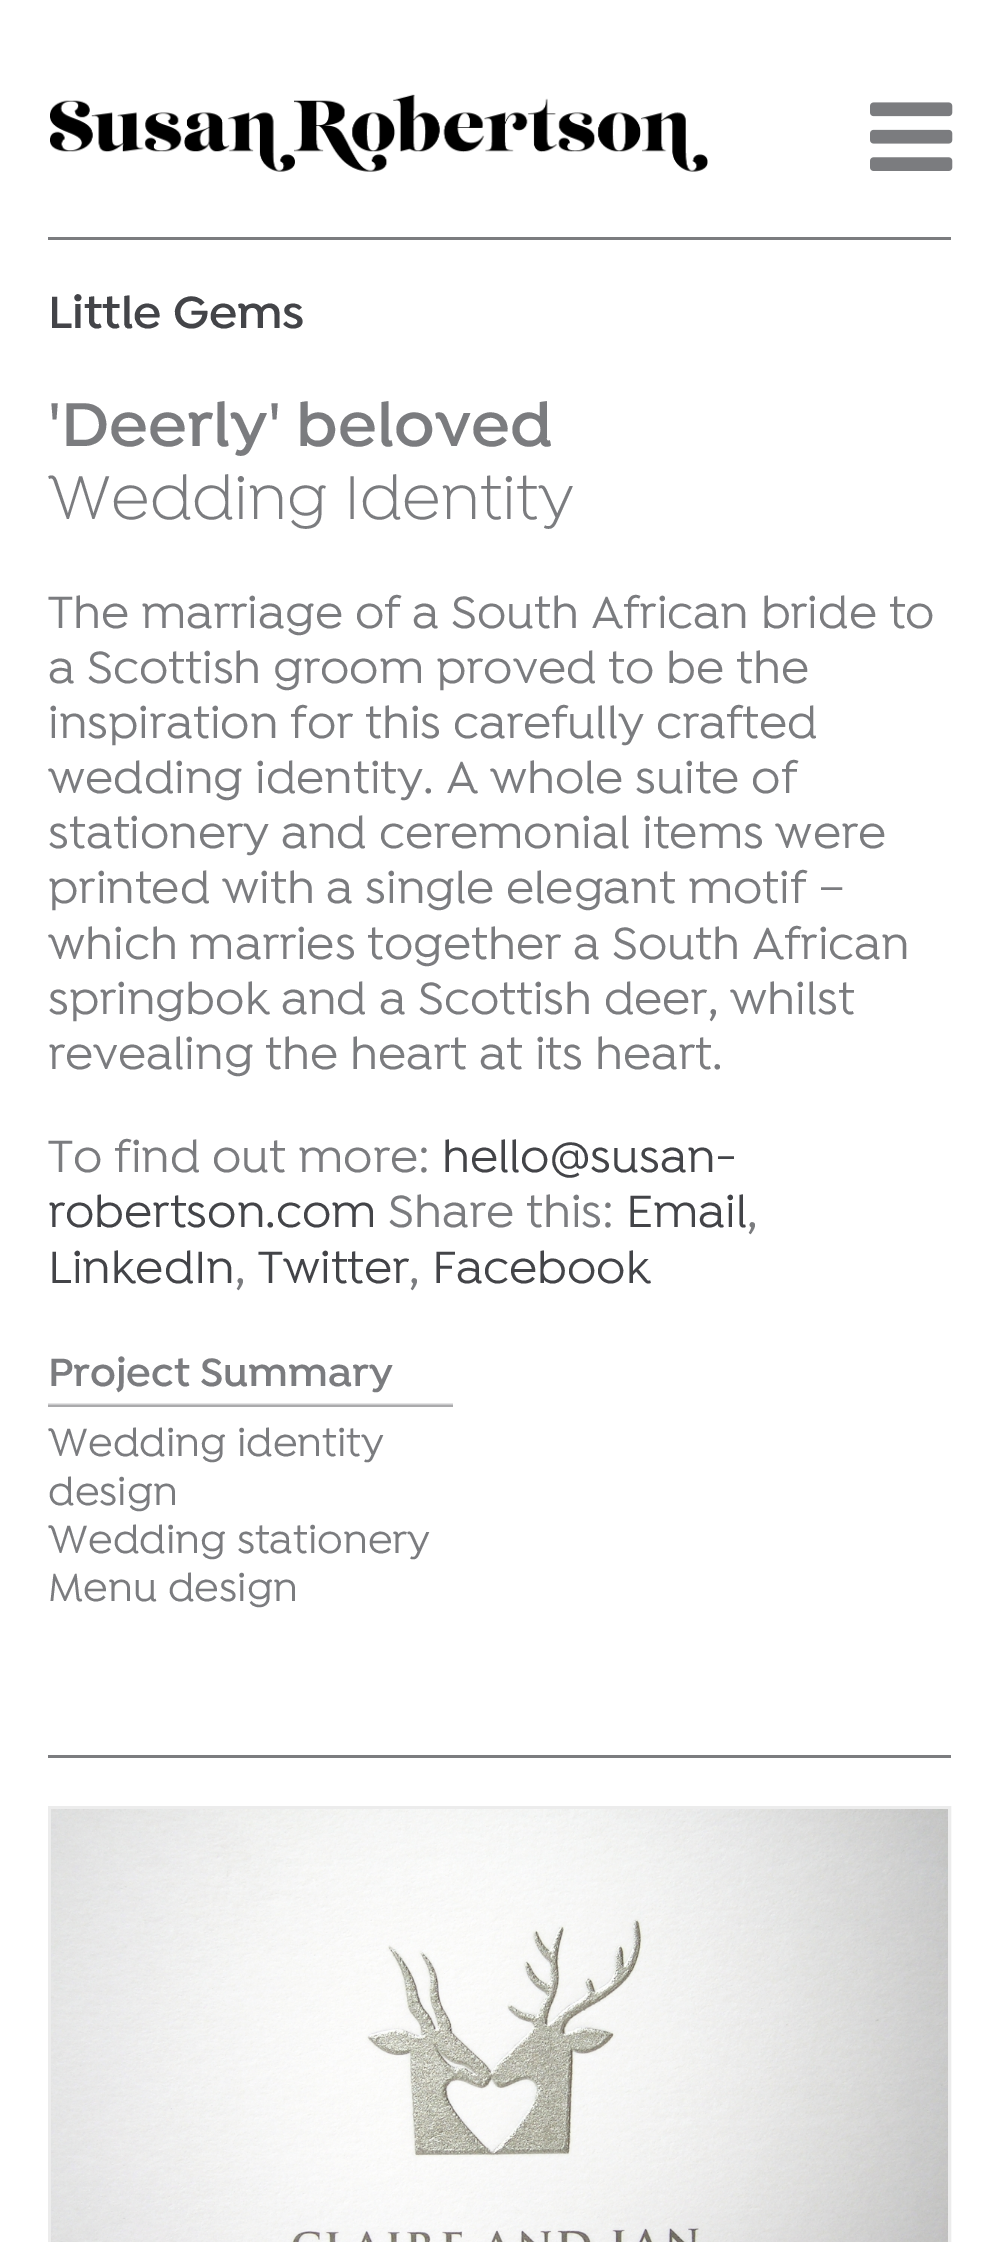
%!PS
<< /PageSize [999 2242] >> setpagedevice
/rgb { 3 { 255 div 3 1 roll } repeat setrgbcolor } def
/font { [ exch dup neg 0 0 3 -1 roll 0 0 ] selectfont } def
/text { moveto show } def
/picture { 5 dict begin { /h /w /y /x /name } { exch def } forall
  gsave x y translate w h scale
  w h 8 [w 0 0 h 0 0] name (r) file false 3 colorimage grestore end } def
0 2242 translate 1 -1 scale
4 setmiterlimit
255 255 255 rgb
0 0 999 2242 rectfill
(img_01.rgb) 50 94 658 78 picture
(img_02.rgb) 870 102 83 69 picture
123 124 127 rgb
48 237 903 3 rectfill
(img_03.rgb) 48 1403 405 4 picture
48 1755 903 3 rectfill
236 236 236 rgb
3 setlinewidth
49.5 1807.5 900 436 rectstroke
(img_04.rgb) 51 1809 897 433 picture
/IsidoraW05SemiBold-SemiBold 48 font
67 68 72 rgb
(Little Gems) 48 328 text
/IsidoraW05SemiBold-SemiBold 66 font
123 124 127 rgb
('Deerly' beloved) 48 446 text
/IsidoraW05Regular-Regular 66 font
(Wedding Identity) 48 519 text
/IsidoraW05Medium-Medium 48 font
(The marriage of a South African bride to) 48 628 text
(a Scottish groom proved to be the) 48 683 text
(inspiration for this carefully crafted) 48 738 text
(wedding identity. A whole suite of) 48 793 text
(stationery and ceremonial items were) 48 848 text
(printed with a single elegant motif –) 48 903 text
(which marries together a South African) 48 959 text
(springbok and a Scottish deer, whilst) 48 1014 text
(revealing the heart at its heart.) 48 1069 text
(To find out more:) 48 1172 text
67 68 72 rgb
(hello@susan-) 442 1172 text
(robertson.com) 48 1227 text
123 124 127 rgb
(Share this:) 388 1227 text
67 68 72 rgb
(Email) 626 1227 text
123 124 127 rgb
(,) 747 1227 text
67 68 72 rgb
(LinkedIn) 48 1283 text
123 124 127 rgb
(,) 235 1283 text
67 68 72 rgb
(Twitter) 258 1283 text
123 124 127 rgb
(,) 409 1283 text
67 68 72 rgb
(Facebook) 432 1283 text
/IsidoraW05SemiBold-SemiBold 42 font
123 124 127 rgb
(Project Summary) 48 1386 text
/IsidoraW05Medium-Medium 42 font
(Wedding identity) 48 1456 text
(design) 48 1505 text
(Wedding stationery) 48 1553 text
(Menu design) 48 1601 text
showpage
